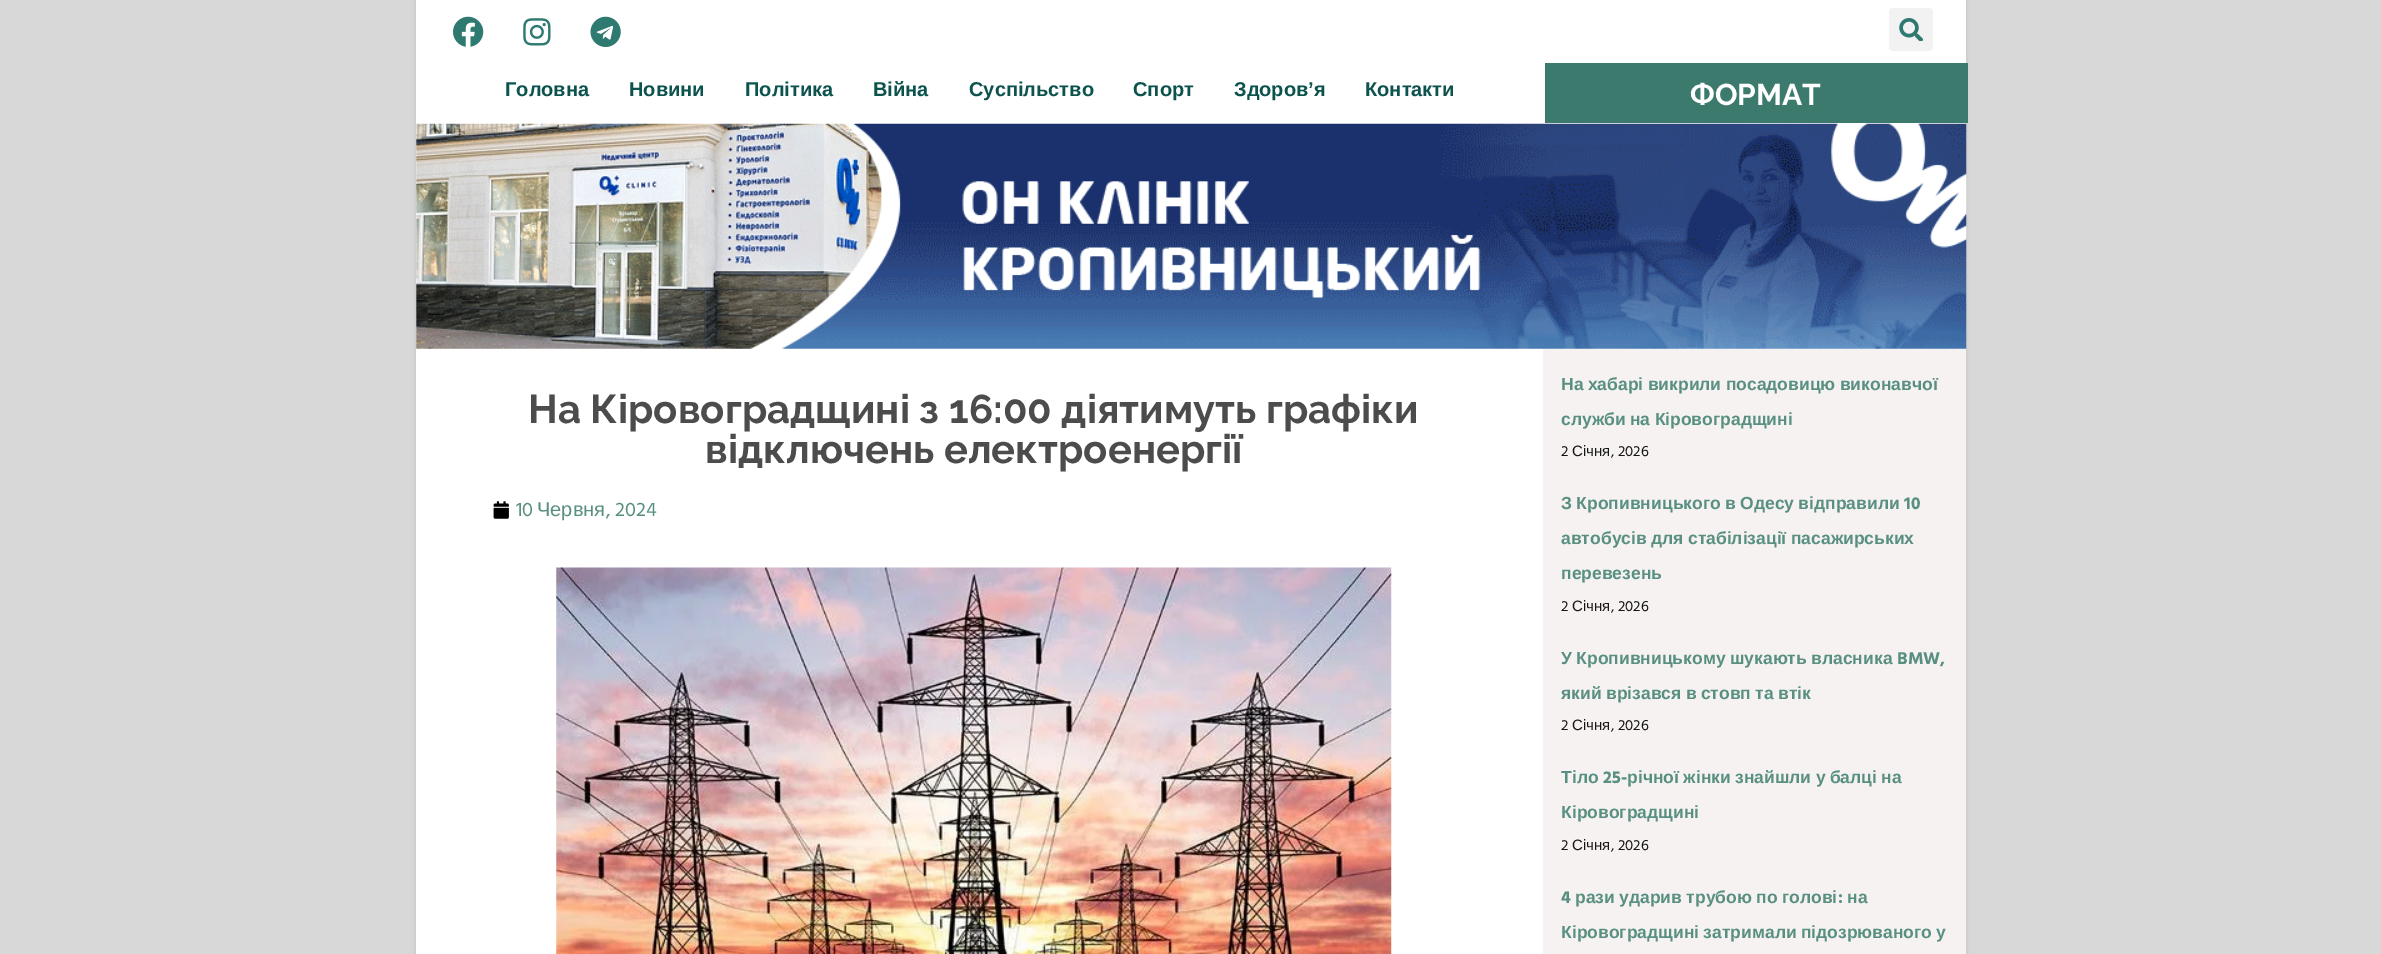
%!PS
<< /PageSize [2381 954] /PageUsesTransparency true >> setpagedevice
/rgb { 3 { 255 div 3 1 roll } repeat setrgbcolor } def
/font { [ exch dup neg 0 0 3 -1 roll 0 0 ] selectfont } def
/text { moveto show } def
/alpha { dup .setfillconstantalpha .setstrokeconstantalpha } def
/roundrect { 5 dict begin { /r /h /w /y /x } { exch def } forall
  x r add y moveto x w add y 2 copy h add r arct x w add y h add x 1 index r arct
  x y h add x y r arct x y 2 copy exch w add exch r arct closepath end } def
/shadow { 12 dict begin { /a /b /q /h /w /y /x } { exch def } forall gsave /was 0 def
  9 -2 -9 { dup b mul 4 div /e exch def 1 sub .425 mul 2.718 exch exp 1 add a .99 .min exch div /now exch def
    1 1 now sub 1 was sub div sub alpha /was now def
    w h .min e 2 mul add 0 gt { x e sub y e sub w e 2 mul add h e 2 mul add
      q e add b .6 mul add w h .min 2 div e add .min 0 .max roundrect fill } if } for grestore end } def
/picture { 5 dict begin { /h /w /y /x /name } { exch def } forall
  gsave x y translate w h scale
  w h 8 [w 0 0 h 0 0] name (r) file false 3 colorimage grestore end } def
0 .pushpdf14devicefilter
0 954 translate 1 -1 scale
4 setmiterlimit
216 216 216 rgb
0 0 2381 954 rectfill
76 76 76 rgb
416 1 1550 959 0 2 0.2 shadow
255 255 255 rgb
416 0 1550 349 rectfill
(img_01.rgb) 453 16 31 31 picture
(img_02.rgb) 523 18 28 28 picture
(img_03.rgb) 590 16 31 31 picture
242 242 242 rgb
1889 8 44 43 4 roundrect fill
(img_04.rgb) 1899 18 24 23 picture
60 122 109 rgb
1545 63 423 60 rectfill
(img_05.rgb) 416 123 1551 226 picture
255 255 255 rgb
416 349 1127 605 rectfill
(img_06.rgb) 493 501 16 18 picture
(img_07.rgb) 556 567 836 387 picture
246 242 242 rgb
1543 349 423 605 rectfill
/LiberationSans-Bold 20 font
12 83 77 rgb
(Головна) 505 96 text
(Новини) 629 96 text
(Політика) 745 96 text
(Війна) 873 96 text
(Суспільство) 969 96 text
(Спорт) 1133 96 text
(Здоров’я) 1234 96 text
(Контакти) 1365 96 text
/Raleway-Bold 30 font
255 255 255 rgb
(ФОРМАТ) 1690 105 text
/Raleway-Bold 40 font
76 76 76 rgb
(На Кіровоградщині з 16:00 діятимуть графіки) 528 423 text
(відключень електроенергії) 705 463 text
/HindSiliguri-Regular 20 font
88 143 128 rgb
(10) 516 516 text
/LiberationSans-Regular 20 font
(Червня) 537 516 text
/HindSiliguri-Regular 20 font
(, 2024) 606 516 text
/LiberationSans-Bold 17.5 font
1561 390 moveto -0.5 0 32 (На хабарі викрили посадовицю виконавчої) widthshow
1561 425 moveto -0.5 0 32 (служби на Кіровоградщині) widthshow
/HindSiliguri-Regular 15 font
23 21 21 rgb
(2) 1561 456 text
/LiberationSans-Regular 15 font
(Січня) 1572 456 text
/HindSiliguri-Regular 15 font
(, 2026) 1611 456 text
/LiberationSans-Bold 17.5 font
88 143 128 rgb
1561 509 moveto -0.5 0 32 (З Кропивницького в Одесу відправили) widthshow
/HindSiliguri-Bold 17.5 font
(10) 1904 509 text
/LiberationSans-Bold 17.5 font
1561 544 moveto -0.5 0 32 (автобусів для стабілізації пасажирських) widthshow
(перевезень) 1561 579 text
/HindSiliguri-Regular 15 font
23 21 21 rgb
(2) 1561 611 text
/LiberationSans-Regular 15 font
(Січня) 1572 611 text
/HindSiliguri-Regular 15 font
(, 2026) 1611 611 text
/LiberationSans-Bold 17.5 font
88 143 128 rgb
1561 664 moveto -0.5 0 32 (У Кропивницькому шукають власника) widthshow
/HindSiliguri-Bold 17.5 font
(BMW,) 1897 664 text
/LiberationSans-Bold 17.5 font
1561 699 moveto -0.5 0 32 (який врізався в стовп та втік) widthshow
/HindSiliguri-Regular 15 font
23 21 21 rgb
(2) 1561 730 text
/LiberationSans-Regular 15 font
(Січня) 1572 730 text
/HindSiliguri-Regular 15 font
(, 2026) 1611 730 text
/LiberationSans-Bold 17.5 font
88 143 128 rgb
(Тіло) 1561 783 text
/HindSiliguri-Bold 17.5 font
(25-) 1603 783 text
/LiberationSans-Bold 17.5 font
1627 783 moveto -0.5 0 32 (річної жінки знайшли у балці на) widthshow
(Кіровоградщині) 1561 818 text
/HindSiliguri-Regular 15 font
23 21 21 rgb
(2) 1561 850 text
/LiberationSans-Regular 15 font
(Січня) 1572 850 text
/HindSiliguri-Regular 15 font
(, 2026) 1611 850 text
/HindSiliguri-Bold 17.5 font
88 143 128 rgb
(4) 1561 903 text
/LiberationSans-Bold 17.5 font
1575 903 moveto -0.5 0 32 (рази ударив трубою по голові) widthshow
/HindSiliguri-Bold 17.5 font
(:) 1838 903 text
/LiberationSans-Bold 17.5 font
(на) 1847 903 text
1561 938 moveto -0.5 0 32 (Кіровоградщині затримали підозрюваного у) widthshow
.poppdf14devicefilter showpage
